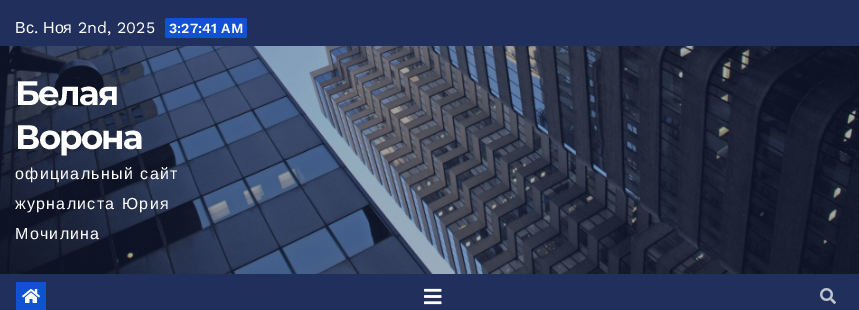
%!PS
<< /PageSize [859 310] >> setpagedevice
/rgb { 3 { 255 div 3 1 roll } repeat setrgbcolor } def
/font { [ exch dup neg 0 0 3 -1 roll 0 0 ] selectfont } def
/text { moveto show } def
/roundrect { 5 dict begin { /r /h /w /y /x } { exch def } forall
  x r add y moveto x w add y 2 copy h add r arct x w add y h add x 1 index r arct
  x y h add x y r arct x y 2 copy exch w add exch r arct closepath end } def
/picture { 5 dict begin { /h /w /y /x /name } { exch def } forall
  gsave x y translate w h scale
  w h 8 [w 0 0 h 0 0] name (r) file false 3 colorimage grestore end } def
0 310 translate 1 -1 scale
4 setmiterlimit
32 47 91 rgb
0 0 859 310 rectfill
17 81 211 rgb
165 18 82 20 2 roundrect fill
(img_01.rgb) 0 46 859 228 picture
16 282 30 28 rectfill
(img_02.rgb) 22 289 18 14 picture
(img_03.rgb) 424 288 18 17 picture
(img_04.rgb) 820 288 16 16 picture
/LiberationSans-Regular 16 font
255 255 255 rgb
(Вс) 15 33 text
/WorkSans-Regular 16 font
(.) 34 33 text
/LiberationSans-Regular 16 font
(Ноя) 43 33 text
/WorkSans-Regular 16 font
(2nd, 2025) 78 33 text
/WorkSans-SemiBold 14 font
(3:27:41 AM) 169 33 text
/Montserrat-Bold 34 font
15 105 moveto -1.75 0 (Белая) ashow
15 149 moveto -1.75 0 (Ворона) ashow
/LiberationSans-Regular 16 font
15 179 moveto 1 0 32 1.25 0 (официальный сайт) awidthshow
15 209 moveto 1 0 32 1.25 0 (журналиста Юрия) awidthshow
15 239 moveto 1.25 0 (Мочилина) ashow
showpage
